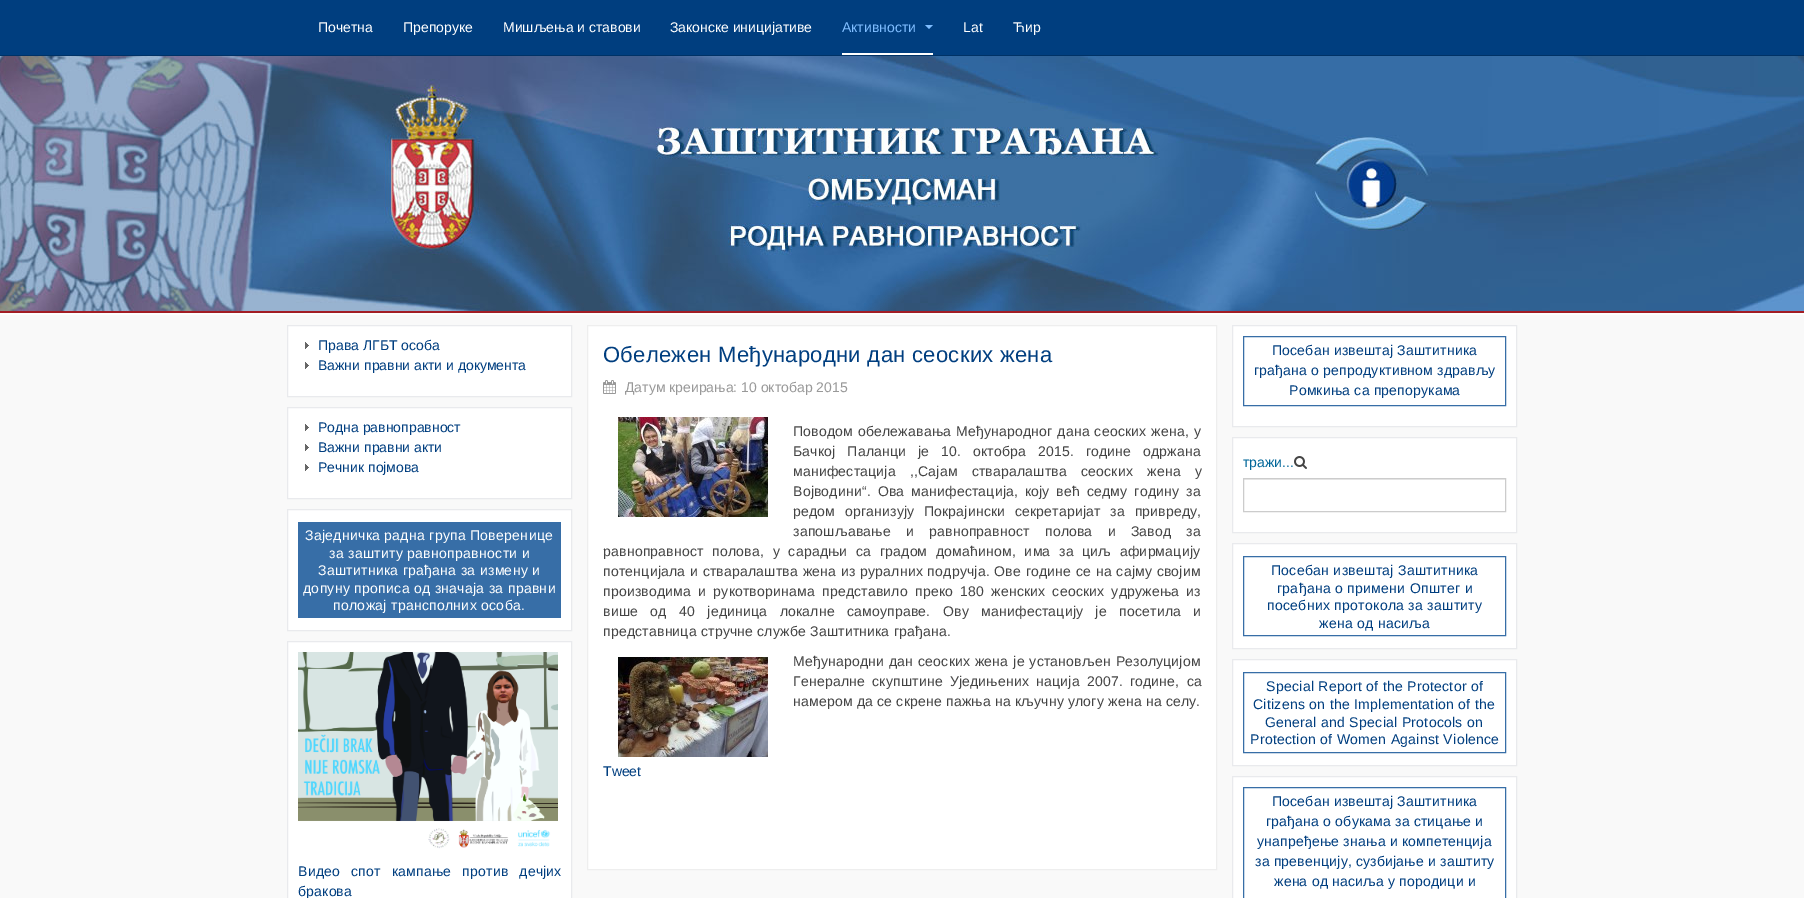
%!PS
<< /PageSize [1804 898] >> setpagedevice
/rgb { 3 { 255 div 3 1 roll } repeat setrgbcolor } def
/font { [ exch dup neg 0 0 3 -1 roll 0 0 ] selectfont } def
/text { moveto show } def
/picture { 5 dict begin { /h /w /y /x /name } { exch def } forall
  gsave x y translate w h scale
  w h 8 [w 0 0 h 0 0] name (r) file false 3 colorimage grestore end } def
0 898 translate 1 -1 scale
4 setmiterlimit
249 249 249 rgb
0 0 1804 898 rectfill
0 62 127 rgb
0 0 1804 55 rectfill
0 50 102 rgb
0 55 1804 1 rectfill
255 255 255 rgb
842 53 91 2 rectfill
127 189 255 rgb
925 25 moveto 8 0 rlineto -4 4 rlineto closepath fill
(img_01.rgb) 0 56 1804 259 picture
(img_02.rgb) 272 56 1256 255 picture
255 255 255 rgb
287.5 325.5 moveto 284 0 rlineto 0 71 rlineto -284 0 rlineto closepath gsave fill grestore
233 234 237 rgb
stroke
(img_03.rgb) 305 342 4 7 picture
(img_03.rgb) 305 362 4 7 picture
255 255 255 rgb
287.5 407.5 moveto 284 0 rlineto 0 91 rlineto -284 0 rlineto closepath gsave fill grestore
233 234 237 rgb
stroke
(img_03.rgb) 305 424 4 7 picture
(img_03.rgb) 305 444 4 7 picture
(img_03.rgb) 305 464 4 7 picture
255 255 255 rgb
287.5 509.5 moveto 284 0 rlineto 0 121 rlineto -284 0 rlineto closepath gsave fill grestore
233 234 237 rgb
stroke
55 110 167 rgb
298 522 263 96 rectfill
255 255 255 rgb
287.5 641.5 moveto 284 0 rlineto 0 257 rlineto -284 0 rlineto closepath gsave fill grestore
233 234 237 rgb
stroke
(img_04.rgb) 298 652 260 197 picture
255 255 255 rgb
587.5 325.5 moveto 629 0 rlineto 0 544 rlineto -629 0 rlineto closepath gsave fill grestore
238 238 238 rgb
stroke
(img_05.rgb) 603 380 13 14 picture
(img_06.rgb) 618 417 150 100 picture
(img_07.rgb) 618 657 150 100 picture
255 255 255 rgb
1232.5 325.5 moveto 284 0 rlineto 0 101 rlineto -284 0 rlineto closepath gsave fill grestore
233 234 237 rgb
stroke
55 110 167 rgb
1243.5 336.5 262 69 rectstroke
255 255 255 rgb
1232.5 437.5 moveto 284 0 rlineto 0 95 rlineto -284 0 rlineto closepath gsave fill grestore
233 234 237 rgb
stroke
(img_08.rgb) 1294 456 13 13 picture
236 236 236 rgb
1244 479 261 1 rectfill
204 204 204 rgb
1243.5 478.5 262 33 rectstroke
255 255 255 rgb
1232.5 543.5 moveto 284 0 rlineto 0 105 rlineto -284 0 rlineto closepath gsave fill grestore
233 234 237 rgb
stroke
55 110 167 rgb
1243.5 556.5 262 79 rectstroke
255 255 255 rgb
1232.5 659.5 moveto 284 0 rlineto 0 106 rlineto -284 0 rlineto closepath gsave fill grestore
233 234 237 rgb
stroke
55 110 167 rgb
1243.5 672.5 262 80 rectstroke
255 255 255 rgb
1232.5 776.5 moveto 284 0 rlineto 0 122 rlineto -284 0 rlineto closepath gsave fill grestore
233 234 237 rgb
stroke
55 110 167 rgb
1243.5 787.5 262 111 rectstroke
/LiberationSans-Regular 14 font
255 255 255 rgb
(Почетна) 318 32 text
(Препоруке) 403 32 text
(Мишљења и ставови) 503 32 text
(Законске иницијативе) 670 32 text
127 189 255 rgb
(Активности) 842 32 text
255 255 255 rgb
(Lat) 963 32 text
(Ћир) 1013 32 text
0 62 127 rgb
(Права ЛГБТ особа) 318 350 text
(Важни правни акти и документа) 318 370 text
(Родна равноправност) 318 432 text
(Важни правни акти) 318 452 text
(Речник појмова) 318 472 text
255 255 255 rgb
305 540 moveto 0.3 0 (Заједничкa раднa групa Поверенице) ashow
329 558 moveto 0.3 0 (за заштиту равноправности и) ashow
318 575 moveto 0.3 0 (Заштитника грађана за измену и) ashow
303 593 moveto 0.3 0 (допуну прописа од значаја за правни) ashow
333 610 moveto 0.3 0 (положај трансполних особа.) ashow
0 62 127 rgb
298 876 moveto 7 0 32 0.2 0 (Видео спот кампање против дечјих) awidthshow
298 896 moveto 0.2 0 (бракова) ashow
/LiberationSans-Regular 22 font
603 362 moveto 0.3 0 (Обележен Међународни дан сеоских жена) ashow
/LiberationSans-Regular 14 font
153 153 153 rgb
(Датум креирања: 10 октобар 2015) 625 392 text
68 68 68 rgb
793 436 moveto 0.75 0 32 0.2 0 (Поводом обележавања Међународног дана сеоских жена, у) awidthshow
793 456 moveto 7.75 0 32 0.2 0 (Бачкој Паланци је 10. октобра 2015. године одржана) awidthshow
793 476 moveto 10 0 32 0.2 0 (манифестација ,,Сајам стваралаштва сеоских жена у) awidthshow
793 496 moveto 2.75 0 32 0.2 0 (Војводини“. Ова манифестација, коју већ седму годину за) awidthshow
793 516 moveto 5.5 0 32 0.2 0 (редом организују Покрајински секретаријат за привреду,) awidthshow
793 536 moveto 11 0 32 0.2 0 (запошљавање и равноправност полова и Завод за) awidthshow
603 556 moveto 4.5 0 32 0.2 0 (равноправност полова, у сарадњи са градом домаћином, има за циљ афирмацију) awidthshow
603 576 moveto 0.6 0 32 0.2 0 (потенцијала и стваралаштва жена из руралних подручја. Ове године се на сајму својим) awidthshow
603 596 moveto 3 0 32 0.2 0 (производима и рукотворинама представило преко 180 женских сеоских удружења из) awidthshow
603 616 moveto 8.25 0 32 0.2 0 (више од 40 јединица локалне самоуправе. Ову манифестацију је посетила и) awidthshow
603 636 moveto 0.2 0 (представница стручне службе Заштитника грађана.) ashow
793 666 moveto 0.75 0 32 0.2 0 (Међународни дан сеоских жена је установљен Резолуцијом) awidthshow
793 686 moveto 3 0 32 0.2 0 (Генералне скупштине Уједињених нација 2007. године, са) awidthshow
793 706 moveto 0.2 0 (намером да се скрене пажња на кључну улогу жена на селу.) ashow
0 62 127 rgb
(Tweet) 603 776 text
1272 355 moveto 0.2 0 (Посебан извештај Заштитника) ashow
1254 375 moveto 0.2 0 (грађана о репродуктивном здрављу) ashow
1289 395 moveto 0.2 0 (Ромкиња са препорукама) ashow
0 102 153 rgb
(тражи...) 1243 467 text
0 62 127 rgb
1271 575 moveto 0.3 0 (Посебан извештај Заштитника) ashow
1277 593 moveto 0.3 0 (грађана о примени Општег и) ashow
1267 610 moveto 0.3 0 (посебних протокола за заштиту) ashow
1319 628 moveto 0.3 0 (жена од насиља) ashow
1266 691 moveto 0.3 0 (Special Report of the Protector of) ashow
1253 709 moveto 0.3 0 (Citizens on the Implementation of the) ashow
1265 727 moveto 0.3 0 (General and Special Protocols on) ashow
1250 744 moveto 0.3 0 (Protection of Women Against Violence) ashow
1272 806 moveto 0.2 0 (Посебан извештај Заштитника) ashow
1266 826 moveto 0.2 0 (грађана о обукама за стицање и) ashow
1257 846 moveto 0.2 0 (унапређење знања и компетенција) ashow
1255 866 moveto 0.2 0 (за превенцију, сузбијање и заштиту) ashow
1274 886 moveto 0.2 0 (жена од насиља у породици и) ashow
showpage
